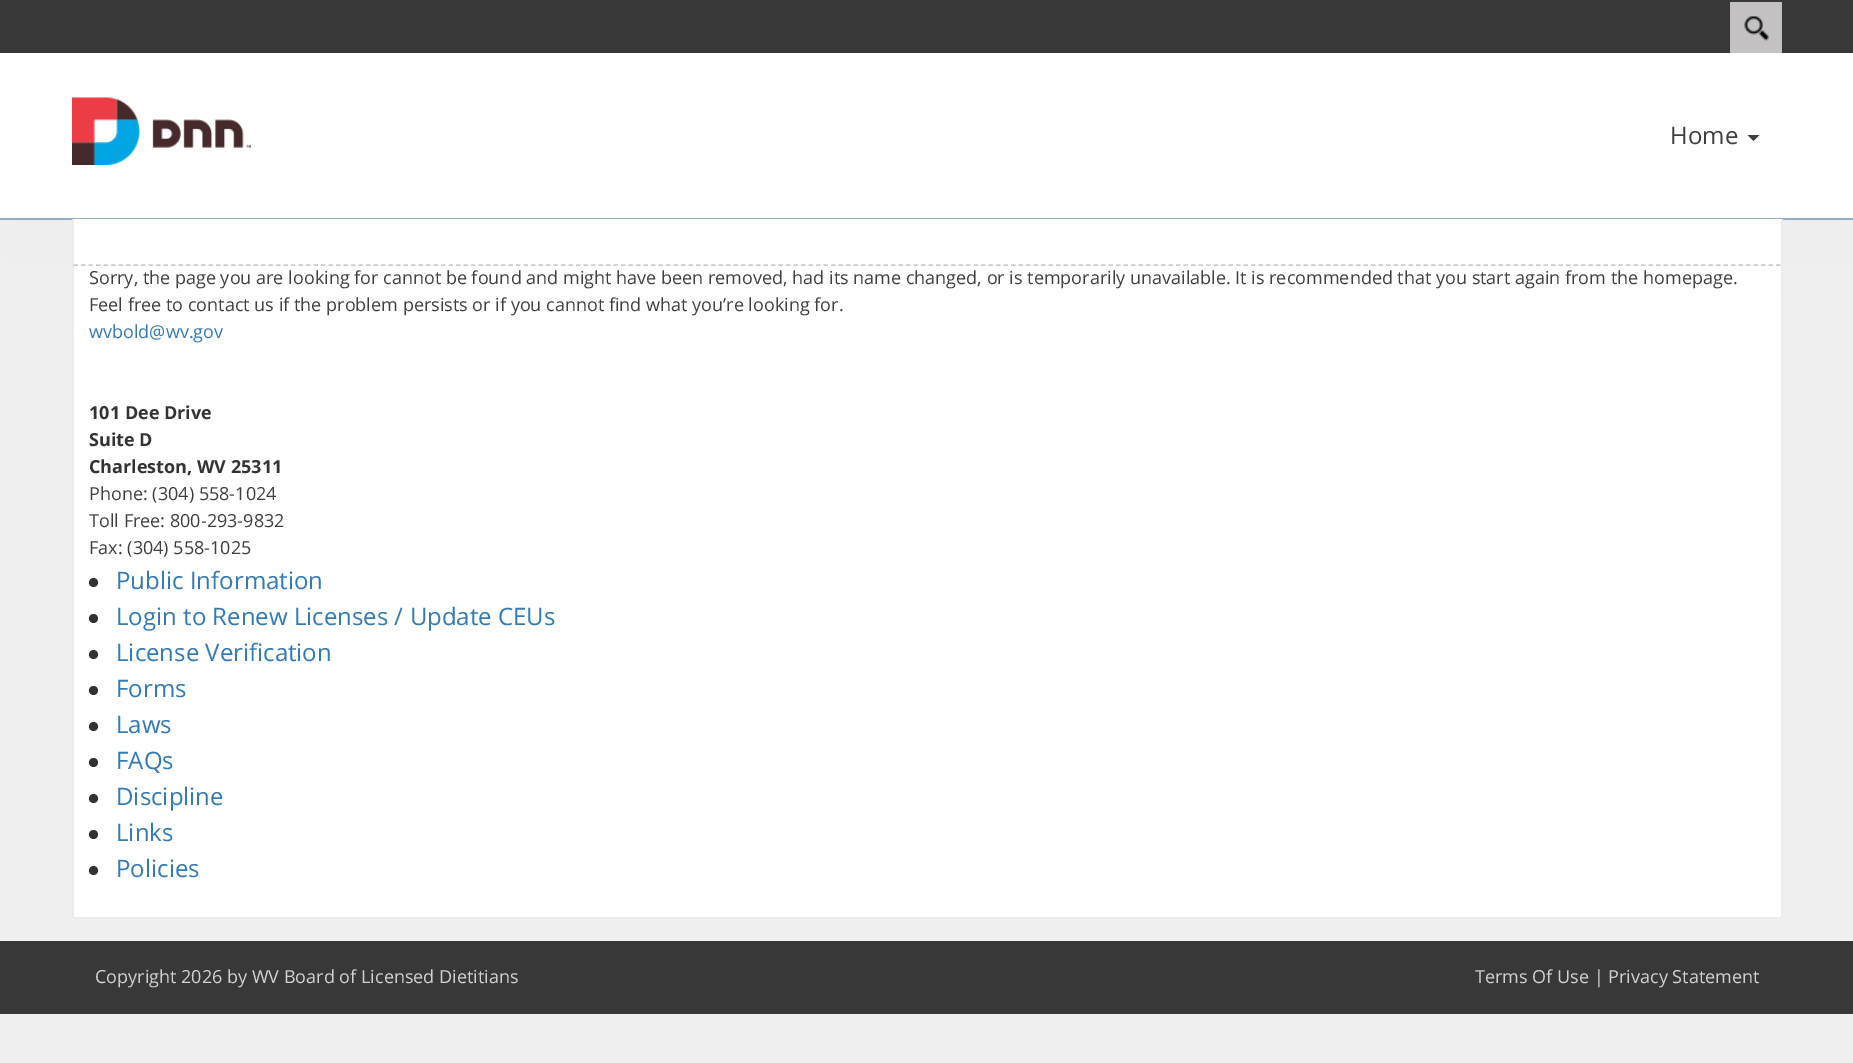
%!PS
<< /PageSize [1853 1063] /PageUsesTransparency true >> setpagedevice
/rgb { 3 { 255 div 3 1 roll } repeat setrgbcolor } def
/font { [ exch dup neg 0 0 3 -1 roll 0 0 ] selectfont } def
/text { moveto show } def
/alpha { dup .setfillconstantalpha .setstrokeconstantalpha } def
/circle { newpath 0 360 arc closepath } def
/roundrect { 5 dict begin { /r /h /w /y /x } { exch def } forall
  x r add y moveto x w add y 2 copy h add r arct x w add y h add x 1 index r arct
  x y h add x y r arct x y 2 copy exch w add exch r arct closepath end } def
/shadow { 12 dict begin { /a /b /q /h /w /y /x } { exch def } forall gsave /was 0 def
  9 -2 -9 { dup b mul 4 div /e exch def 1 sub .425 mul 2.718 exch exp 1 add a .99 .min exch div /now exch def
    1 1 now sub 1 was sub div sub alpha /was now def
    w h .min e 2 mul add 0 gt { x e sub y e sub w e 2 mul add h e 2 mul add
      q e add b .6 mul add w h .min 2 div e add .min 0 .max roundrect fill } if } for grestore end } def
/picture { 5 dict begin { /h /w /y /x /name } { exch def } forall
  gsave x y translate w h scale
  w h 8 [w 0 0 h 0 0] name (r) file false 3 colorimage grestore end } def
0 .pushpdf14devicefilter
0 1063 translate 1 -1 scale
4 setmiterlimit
240 240 240 rgb
0 0 1853 1063 rectfill
202 202 202 rgb
2 75 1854 53 0 75 1 shadow
56 56 56 rgb
0 0 1853 53 rectfill
195 193 193 rgb
1730 2 52 51 rectfill
(img_01.rgb) 1744 16 25 25 picture
255 255 255 rgb
0 53 1853 165 rectfill
145 175 202 rgb
0 218 1853 2 rectfill
(img_02.rgb) 72 97 179 68 picture
63 63 63 rgb
1747.5 135 moveto 12 0 rlineto -6 6 rlineto closepath fill
255 255 255 rgb
74 219 1707 698 rectfill
236 236 236 rgb
1781 219 2 699 rectfill
72 917 1710 2 rectfill
72 219 2 699 rectfill
204 204 204 rgb
1.5 setlinewidth
[4.5 3] 0 setdash
73.5 265 moveto 1707 0 rlineto stroke
51 51 51 rgb
93.5 582.5 4.5 circle fill
93.5 618.5 4.5 circle fill
93.5 654.5 4.5 circle fill
93.5 690.5 4.5 circle fill
93.5 726.5 4.5 circle fill
93.5 762.5 4.5 circle fill
93.5 798.5 4.5 circle fill
93.5 834.5 4.5 circle fill
93.5 870.5 4.5 circle fill
56 56 56 rgb
0 941 1853 73 rectfill
/OpenSans-Regular 24 font
63 63 63 rgb
(Home) 1670 144 text
/OpenSans-Regular 18 font
(Sorry, the page you are looking for cannot be found and might have been removed, had its name changed, or is temporarily unavailable. It is recommended that you start again from the homepage.) 89 284 text
(Feel free to contact us if the problem persists or if you cannot find what you’re looking for.) 89 311 text
51 122 183 rgb
(wvbold@wv.gov) 89 338 text
/OpenSans-Bold 18 font
51 51 51 rgb
(101 Dee Drive) 89 419 text
(Suite D) 89 446 text
(Charleston, WV 25311) 89 473 text
/OpenSans-Regular 18 font
63 63 63 rgb
(Phone: \(304\) 558-1024) 89 500 text
(Toll Free: 800-293-9832) 89 527 text
(Fax: \(304\) 558-1025) 89 554 text
/OpenSans-Regular 24 font
51 122 183 rgb
(Public Information) 116 589 text
(Login to Renew Licenses / Update CEUs) 116 625 text
(License Verification) 116 661 text
(Forms) 116 697 text
(Laws) 116 733 text
(FAQs) 116 769 text
(Discipline) 116 805 text
(Links) 116 841 text
(Policies) 116 877 text
/OpenSans-Regular 18 font
210 210 210 rgb
(Copyright 2026 by WV Board of Licensed Dietitians) 95 983 text
(Terms Of Use | Privacy Statement) 1475 983 text
.poppdf14devicefilter showpage
